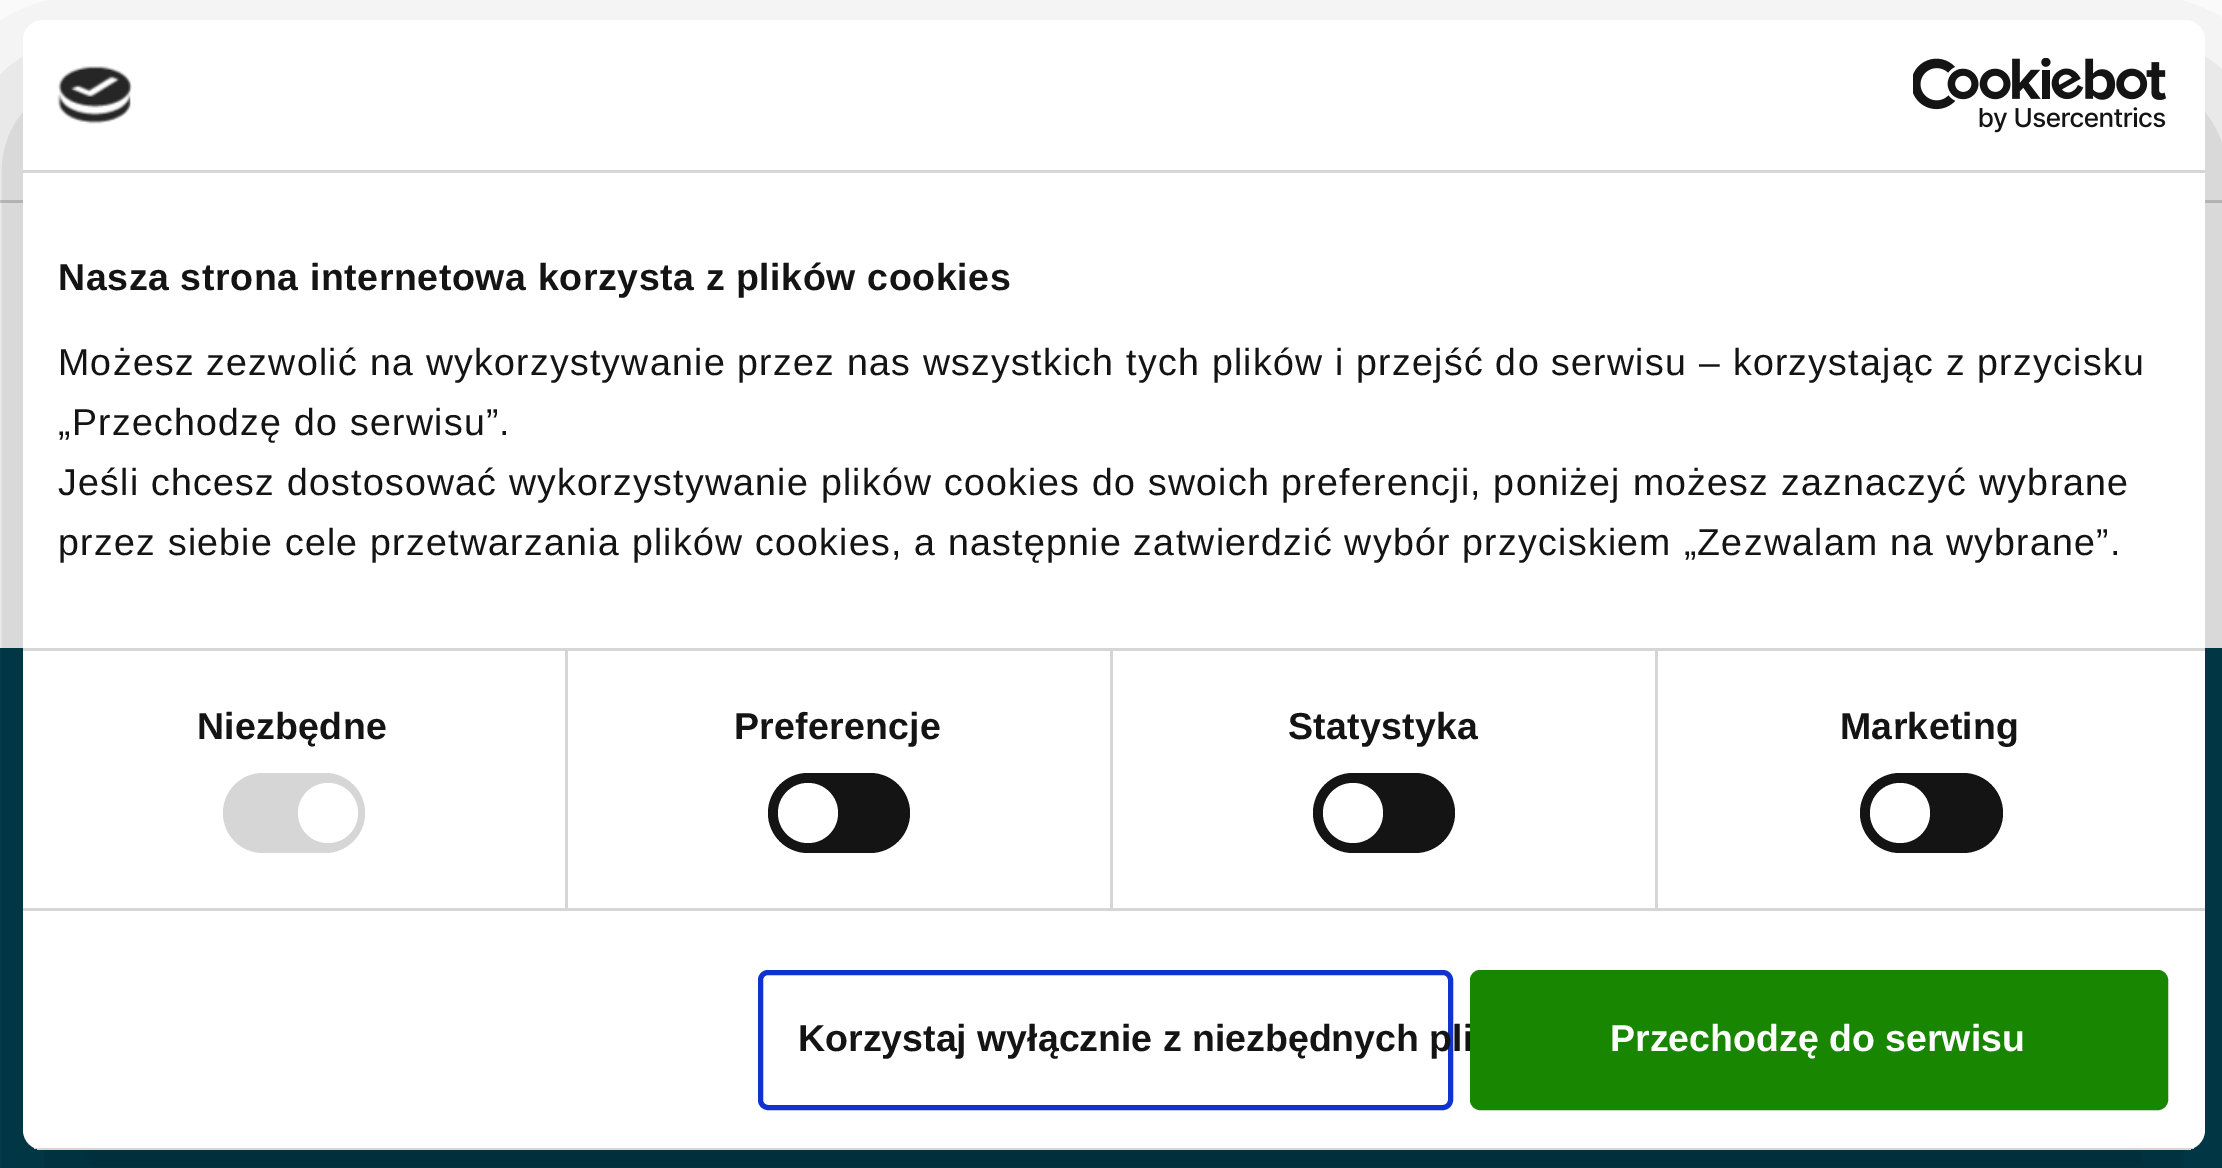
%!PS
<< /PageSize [2222 1168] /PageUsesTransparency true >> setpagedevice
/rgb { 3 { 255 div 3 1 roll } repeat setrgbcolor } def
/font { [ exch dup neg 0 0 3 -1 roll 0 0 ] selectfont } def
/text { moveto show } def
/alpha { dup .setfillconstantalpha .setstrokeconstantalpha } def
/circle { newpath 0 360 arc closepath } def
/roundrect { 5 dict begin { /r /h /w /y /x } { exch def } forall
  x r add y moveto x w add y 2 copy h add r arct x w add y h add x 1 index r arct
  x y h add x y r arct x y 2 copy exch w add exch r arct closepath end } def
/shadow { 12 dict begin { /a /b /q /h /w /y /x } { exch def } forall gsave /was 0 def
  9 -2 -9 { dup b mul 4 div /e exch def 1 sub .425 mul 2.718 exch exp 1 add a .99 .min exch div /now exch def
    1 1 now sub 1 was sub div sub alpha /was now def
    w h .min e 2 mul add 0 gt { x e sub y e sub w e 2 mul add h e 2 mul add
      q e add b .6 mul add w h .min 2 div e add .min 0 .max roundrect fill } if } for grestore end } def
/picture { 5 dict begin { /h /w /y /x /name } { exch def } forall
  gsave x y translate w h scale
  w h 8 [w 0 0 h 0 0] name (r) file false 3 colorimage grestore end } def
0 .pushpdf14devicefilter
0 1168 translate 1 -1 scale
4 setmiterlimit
255 255 255 rgb
0 0 2222 1168 rectfill
211 211 211 rgb
0 200 2222 3 rectfill
1 64 81 rgb
0 648 2222 520 rectfill
gsave
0 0 moveto 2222 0 rlineto 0 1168 rlineto -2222 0 rlineto closepath 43 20 moveto 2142 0 rlineto 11 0 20 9 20 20 rcurveto 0 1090 rlineto 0 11 -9 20 -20 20 rcurveto -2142 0 rlineto -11 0 -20 -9 -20 -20 rcurveto 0 -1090 rlineto 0 -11 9 -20 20 -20 rcurveto closepath eoclip newpath
0 0 0 rgb
23 100 2182 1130 20 85 0.3 shadow
grestore
255 255 255 rgb
23 20 2182 1130 20 roundrect fill
214 214 214 rgb
23 170 2182 3 rectfill
(img_01.rgb) 57 66 75 58 picture
(img_02.rgb) 1913 58 253 75 picture
565 650 3 258 rectfill
1110 650 3 258 rectfill
1655 650 3 258 rectfill
23 648 2182 3 rectfill
23 908 2182 3 rectfill
223 773 142 80 40 roundrect fill
255 255 255 rgb
328 813 30 circle fill
20 20 20 rgb
768 773 142 80 40 roundrect fill
255 255 255 rgb
808 813 30 circle fill
20 20 20 rgb
1313 773 142 80 40 roundrect fill
255 255 255 rgb
1353 813 30 circle fill
20 20 20 rgb
1860 773 143 80 40 roundrect fill
255 255 255 rgb
1900 813 30 circle fill
gsave
23 20 2182 1130 20 roundrect clip newpath
214 214 214 rgb
34 1148 2160 2 rectfill
grestore
16 50 207 rgb
5 setlinewidth
760.5 972.5 690 135 7.5 roundrect stroke
/LiberationSans-Bold 37.5 font
20 20 20 rgb
58 290 moveto 0.6 0 (Nasza strona internetowa korzysta z plików cookies) ashow
/LiberationSans-Regular 37.5 font
58 375 moveto 1.25 0 (Możesz zezwolić na wykorzystywanie przez nas wszystkich tych plików i przejść do serwisu – korzystając z przycisku) ashow
58 435 moveto 1.25 0 („Przechodzę do serwisu”.) ashow
58 495 moveto 1.25 0 (Jeśli chcesz dostosować wykorzystywanie plików cookies do swoich preferencji, poniżej możesz zaznaczyć wybrane) ashow
58 555 moveto 1.25 0 (przez siebie cele przetwarzania plików cookies, a następnie zatwierdzić wybór przyciskiem „Zezwalam na wybrane”.) ashow
/LiberationSans-Bold 37.5 font
197 739 moveto 0.25 0 (Niezbędne) ashow
734 739 moveto 0.25 0 (Preferencje) ashow
1288 739 moveto 0.25 0 (Statystyka) ashow
1840 739 moveto 0.25 0 (Marketing) ashow
(Korzystaj wyłącznie z niezbędnych pli) 798 1051 text
24 134 0 rgb
1471.5 971.5 695 137 8.5 roundrect gsave fill grestore
3 setlinewidth
stroke
255 255 255 rgb
(Przechodzę do serwisu) 1610 1051 text
.poppdf14devicefilter showpage
